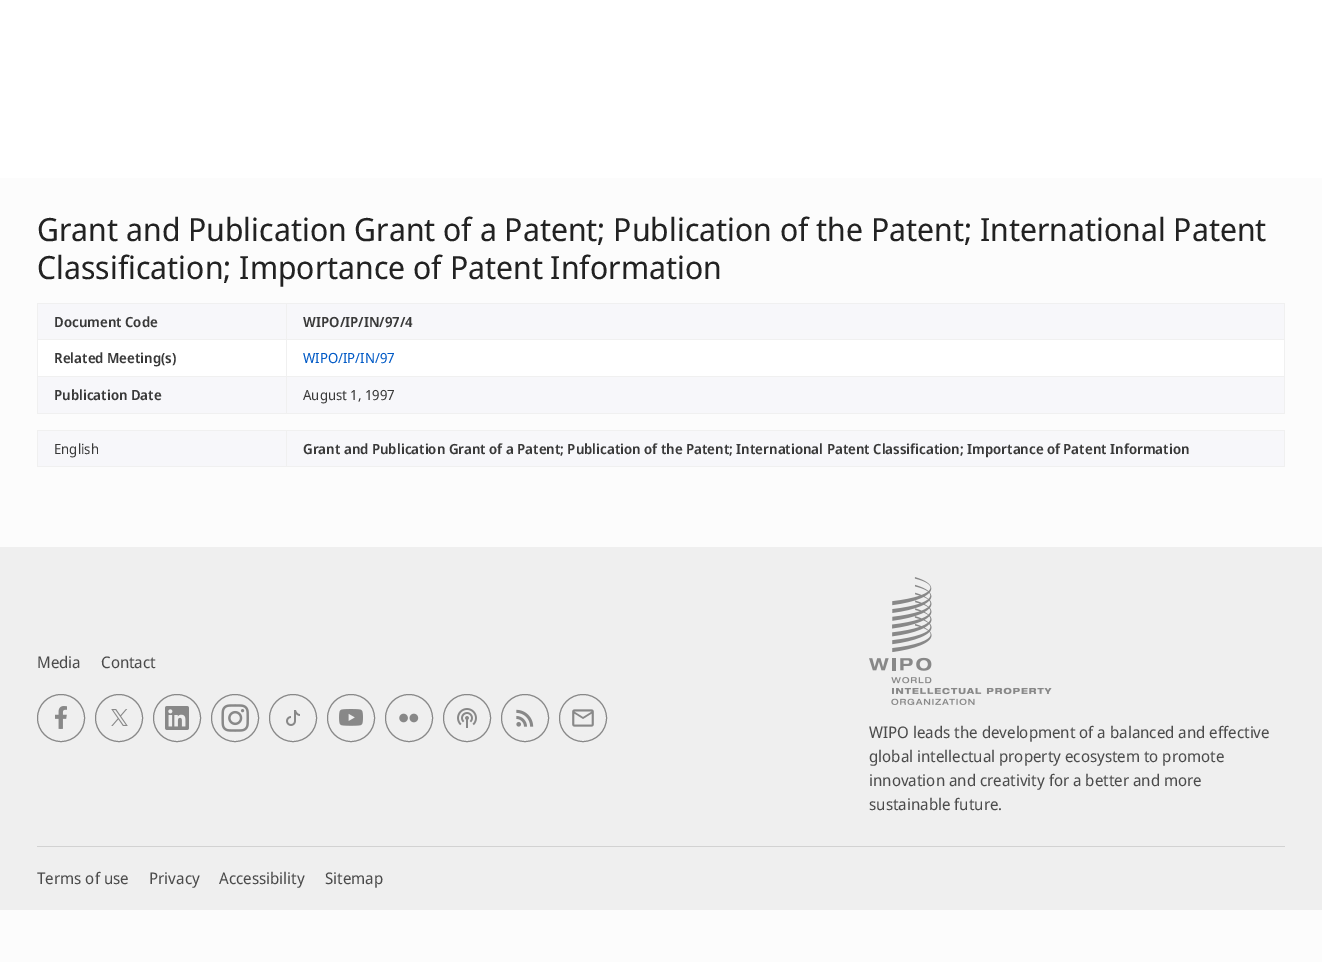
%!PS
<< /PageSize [1322 962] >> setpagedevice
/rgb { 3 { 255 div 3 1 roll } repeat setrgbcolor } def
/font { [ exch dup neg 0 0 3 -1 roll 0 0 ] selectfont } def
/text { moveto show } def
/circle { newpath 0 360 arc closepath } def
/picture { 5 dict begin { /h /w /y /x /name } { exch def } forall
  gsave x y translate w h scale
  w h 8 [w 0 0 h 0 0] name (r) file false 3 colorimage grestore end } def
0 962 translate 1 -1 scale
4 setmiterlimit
252 252 252 rgb
0 0 1322 962 rectfill
255 255 255 rgb
0 0 1322 178 rectfill
38 340 1246 36 rectfill
240 240 240 rgb
37 303 1248 1 rectfill
1284 303 1 111 rectfill
37 413 1248 1 rectfill
37 303 1 111 rectfill
247 247 250 rgb
38 304 248 35 rectfill
287 304 997 35 rectfill
240 240 240 rgb
37 339 1248 1 rectfill
37 376 1248 1 rectfill
286 376 1 38 rectfill
286 303 1 74 rectfill
247 247 250 rgb
38 377 248 36 rectfill
287 377 997 36 rectfill
240 240 240 rgb
37 430 1248 1 rectfill
1284 430 1 37 rectfill
37 466 1248 1 rectfill
37 430 1 37 rectfill
247 247 250 rgb
38 431 248 35 rectfill
240 240 240 rgb
286 430 1 37 rectfill
247 247 250 rgb
287 431 997 35 rectfill
239 239 239 rgb
0 547 1322 363 rectfill
136 136 136 rgb
61 718 23.5 circle stroke
(img_01.rgb) 55 706 12 23 picture
119 718 23.5 circle stroke
(img_02.rgb) 111 709 17 17 picture
177 718 23.5 circle stroke
(img_03.rgb) 165 706 24 24 picture
235 718 23.5 circle stroke
(img_04.rgb) 221 704 28 28 picture
293 718 23.5 circle stroke
(img_05.rgb) 286 710 14 16 picture
351 718 23.5 circle stroke
(img_06.rgb) 339 709 24 17 picture
409 718 23.5 circle stroke
(img_07.rgb) 399 713 20 10 picture
467 718 23.5 circle stroke
(img_08.rgb) 457 708 20 20 picture
525 718 23.5 circle stroke
(img_09.rgb) 516 709 18 18 picture
583 718 23.5 circle stroke
(img_10.rgb) 572 709 22 18 picture
(img_11.rgb) 869 577 183 128 picture
210 210 210 rgb
37 846 1248 1 rectfill
/NotoSansDisplay-Regular 32 font
34 34 34 rgb
(Grant and Publication Grant of a Patent; Publication of the Patent; International Patent) 37 241 text
(Classification; Importance of Patent Information) 37 279 text
/NotoSansDisplay-SemiBold 14 font
57 57 57 rgb
(Document Code) 54 327 text
(WIPO/IP/IN/97/4) 303 327 text
(Related Meeting\(s\)) 54 363 text
/NotoSansDisplay-Regular 14 font
0 89 198 rgb
(WIPO/IP/IN/97) 303 363 text
/NotoSansDisplay-SemiBold 14 font
57 57 57 rgb
(Publication Date) 54 400 text
/NotoSansDisplay-Regular 14 font
(August 1, 1997) 303 400 text
(English) 54 454 text
/NotoSansDisplay-SemiBold 14 font
(Grant and Publication Grant of a Patent; Publication of the Patent; International Patent Classification; Importance of Patent Information) 303 454 text
/NotoSansDisplay-Regular 16 font
75 75 75 rgb
(Media) 37 668 text
(Contact) 101 668 text
(WIPO leads the development of a balanced and effective) 869 738 text
(global intellectual property ecosystem to promote) 869 762 text
(innovation and creativity for a better and more) 869 786 text
(sustainable future.) 869 810 text
(Terms of use) 37 884 text
(Privacy) 149 884 text
(Accessibility) 219 884 text
(Sitemap) 325 884 text
showpage
